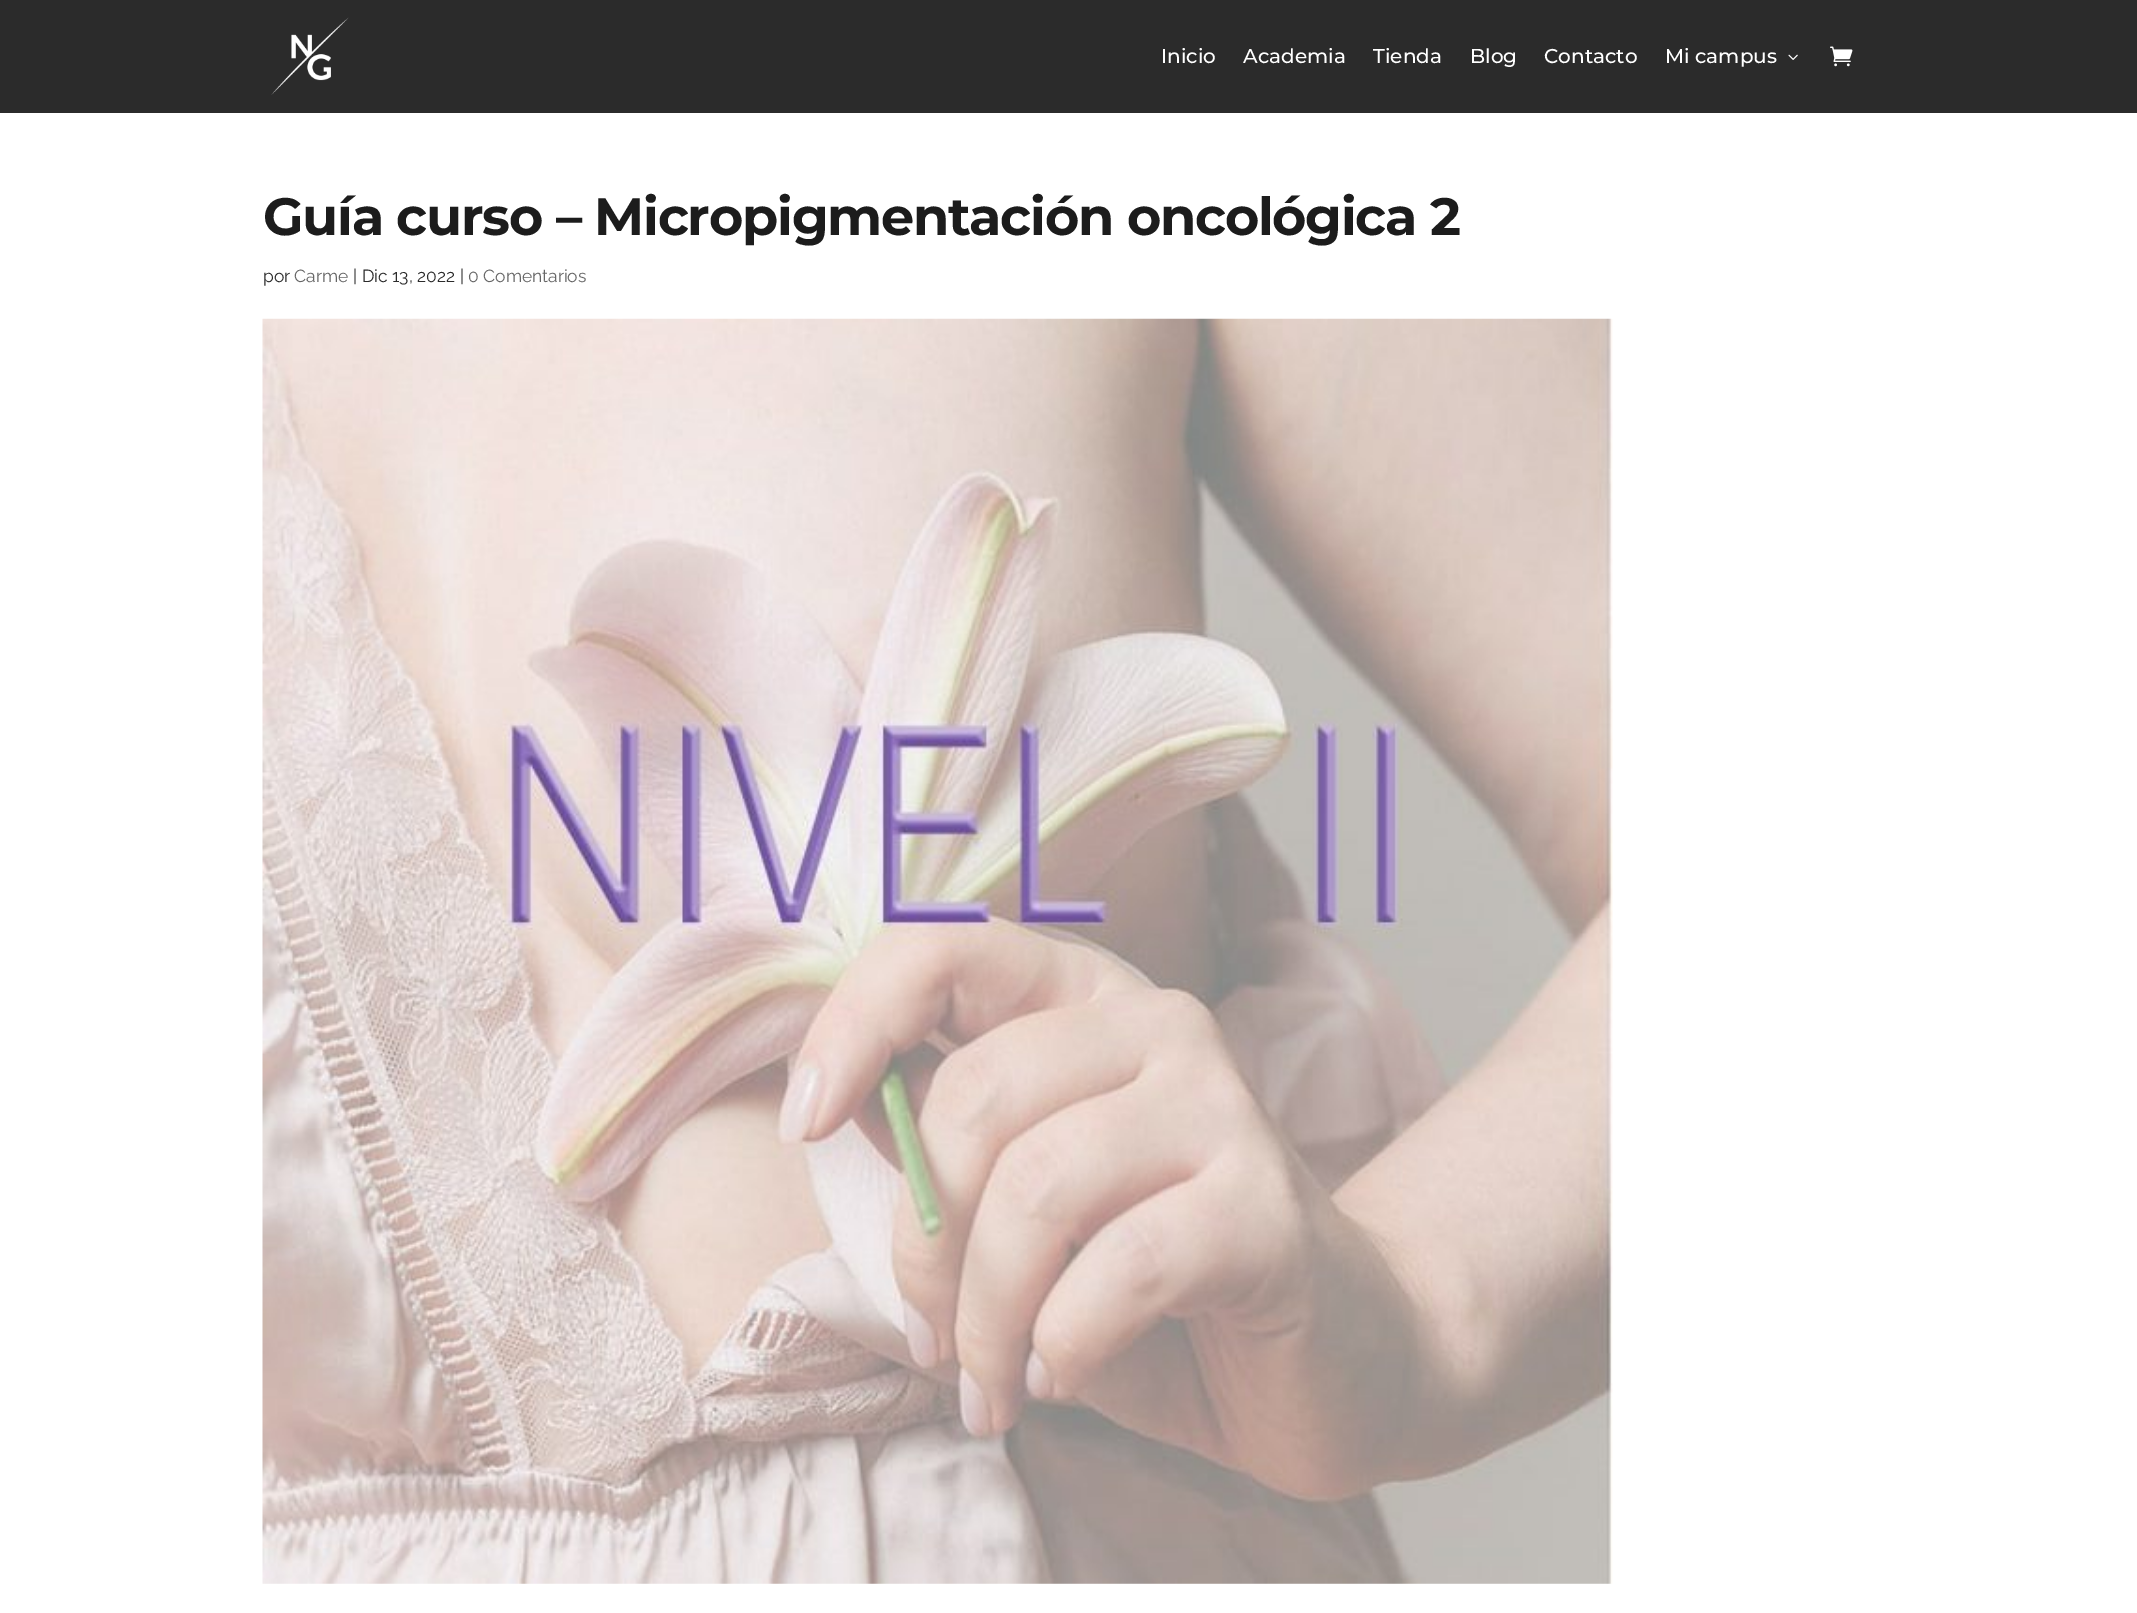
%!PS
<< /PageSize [2137 1613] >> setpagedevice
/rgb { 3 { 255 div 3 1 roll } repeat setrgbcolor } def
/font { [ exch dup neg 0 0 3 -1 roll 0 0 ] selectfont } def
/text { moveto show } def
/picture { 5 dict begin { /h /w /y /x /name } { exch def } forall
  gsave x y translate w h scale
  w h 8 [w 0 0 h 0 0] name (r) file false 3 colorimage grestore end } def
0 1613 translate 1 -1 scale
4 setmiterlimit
255 255 255 rgb
0 0 2137 1613 rectfill
43 43 43 rgb
0 0 2137 113 rectfill
(img_01.rgb) 271 17 78 78 picture
(img_02.rgb) 1788 54 10 6 picture
(img_03.rgb) 1830 46 23 21 picture
(img_04.rgb) 262 318 1351 1266 picture
/Montserrat-Medium 20 font
255 255 255 rgb
(Inicio) 1161 63 text
(Academia) 1243 63 text
(Tienda) 1373 63 text
(Blog) 1470 63 text
(Contacto) 1544 63 text
(Mi campus) 1665 63 text
/Montserrat-Bold 52.5 font
28 28 28 rgb
263 235 moveto -1.25 0 (Guía curso – Micropigmentación oncológica 2) ashow
/Raleway-Regular 17.5 font
43 43 43 rgb
(por) 263 282 text
102 102 102 rgb
(Carme) 294 282 text
43 43 43 rgb
(| Dic 13, 2022 |) 353 282 text
102 102 102 rgb
(0 Comentarios) 468 282 text
showpage
